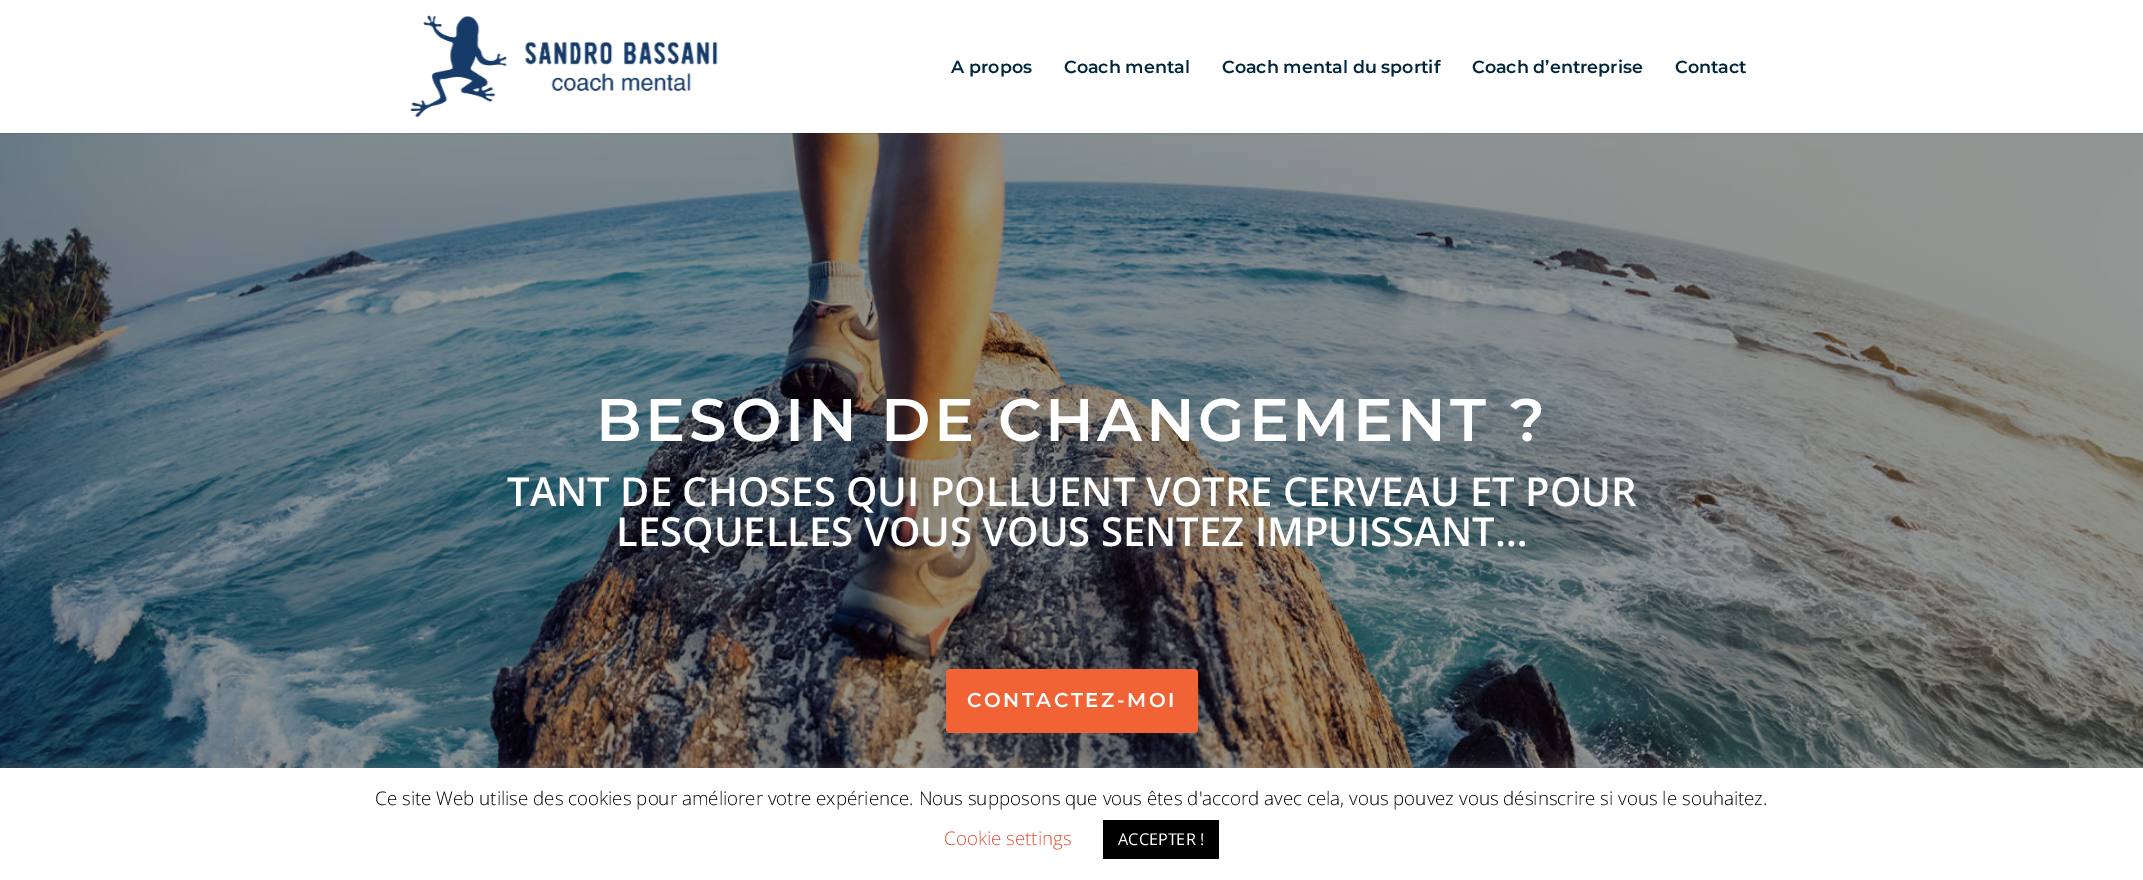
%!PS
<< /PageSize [2143 880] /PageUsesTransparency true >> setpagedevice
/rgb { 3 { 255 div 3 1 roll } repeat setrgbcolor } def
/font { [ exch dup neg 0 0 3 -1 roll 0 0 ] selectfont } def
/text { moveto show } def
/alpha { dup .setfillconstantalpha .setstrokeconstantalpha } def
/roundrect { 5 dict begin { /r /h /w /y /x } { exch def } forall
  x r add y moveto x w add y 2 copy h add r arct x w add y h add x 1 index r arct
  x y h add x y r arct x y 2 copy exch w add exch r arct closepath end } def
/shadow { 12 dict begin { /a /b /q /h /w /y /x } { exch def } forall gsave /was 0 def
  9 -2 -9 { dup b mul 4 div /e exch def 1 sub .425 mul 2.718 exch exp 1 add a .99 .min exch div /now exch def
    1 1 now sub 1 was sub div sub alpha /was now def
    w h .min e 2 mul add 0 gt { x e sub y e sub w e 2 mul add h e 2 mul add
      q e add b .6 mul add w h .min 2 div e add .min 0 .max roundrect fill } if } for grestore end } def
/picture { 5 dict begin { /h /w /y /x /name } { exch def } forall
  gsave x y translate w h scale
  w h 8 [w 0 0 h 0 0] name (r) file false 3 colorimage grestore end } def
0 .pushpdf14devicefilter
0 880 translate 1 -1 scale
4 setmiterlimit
255 255 255 rgb
0 0 2143 880 rectfill
(img_02.rgb) 0 133 2143 635 picture
0.1 alpha
0 0 0 rgb
0 132 moveto 0 2 rlineto 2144 0 rlineto 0 -133 rlineto 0 131 rlineto closepath fill
1 alpha
255 255 255 rgb
0 132 2143 1 rectfill
(img_01.rgb) 410 15 308 103 picture
241 99 52 rgb
946 669 252 64 4 roundrect fill
172 171 171 rgb
0 766 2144 113 0 6 0.3 shadow
255 255 255 rgb
0 768 2143 112 rectfill
0 0 0 rgb
1103 820 116 39 rectfill
/Montserrat-Thin 17.5 font
0 38 59 rgb
(A propos) 951 73 text
(Coach mental) 1064 73 text
(Coach mental du sportif) 1222 73 text
(Coach d’entreprise) 1472 73 text
(Contact) 1675 73 text
/Montserrat-Thin 60 font
255 255 255 rgb
596 441 moveto 3.75 0 (BESOIN DE CHANGEMENT ?) ashow
/OpenSans-SemiBold 40 font
(TANT DE CHOSES QUI POLLUENT VOTRE CERVEAU ET POUR) 507 506 text
(LESQUELLES VOUS VOUS SENTEZ IMPUISSANT…) 616 546 text
/Montserrat-Thin 20 font
967 707 moveto 2.5 0 (CONTACTEZ-MOI) ashow
/OpenSans-Light 18.75 font
0 0 0 rgb
(Ce site Web utilise des cookies pour améliorer votre expérience. Nous supposons que vous êtes d'accord avec cela, vous pouvez vous désinscrire si vous le souhaitez.) 375 805 text
221 79 51 rgb
(Cookie settings) 944 845 text
/OpenSans-Regular 16.25 font
255 255 255 rgb
(ACCEPTER !) 1118 845 text
.poppdf14devicefilter showpage
